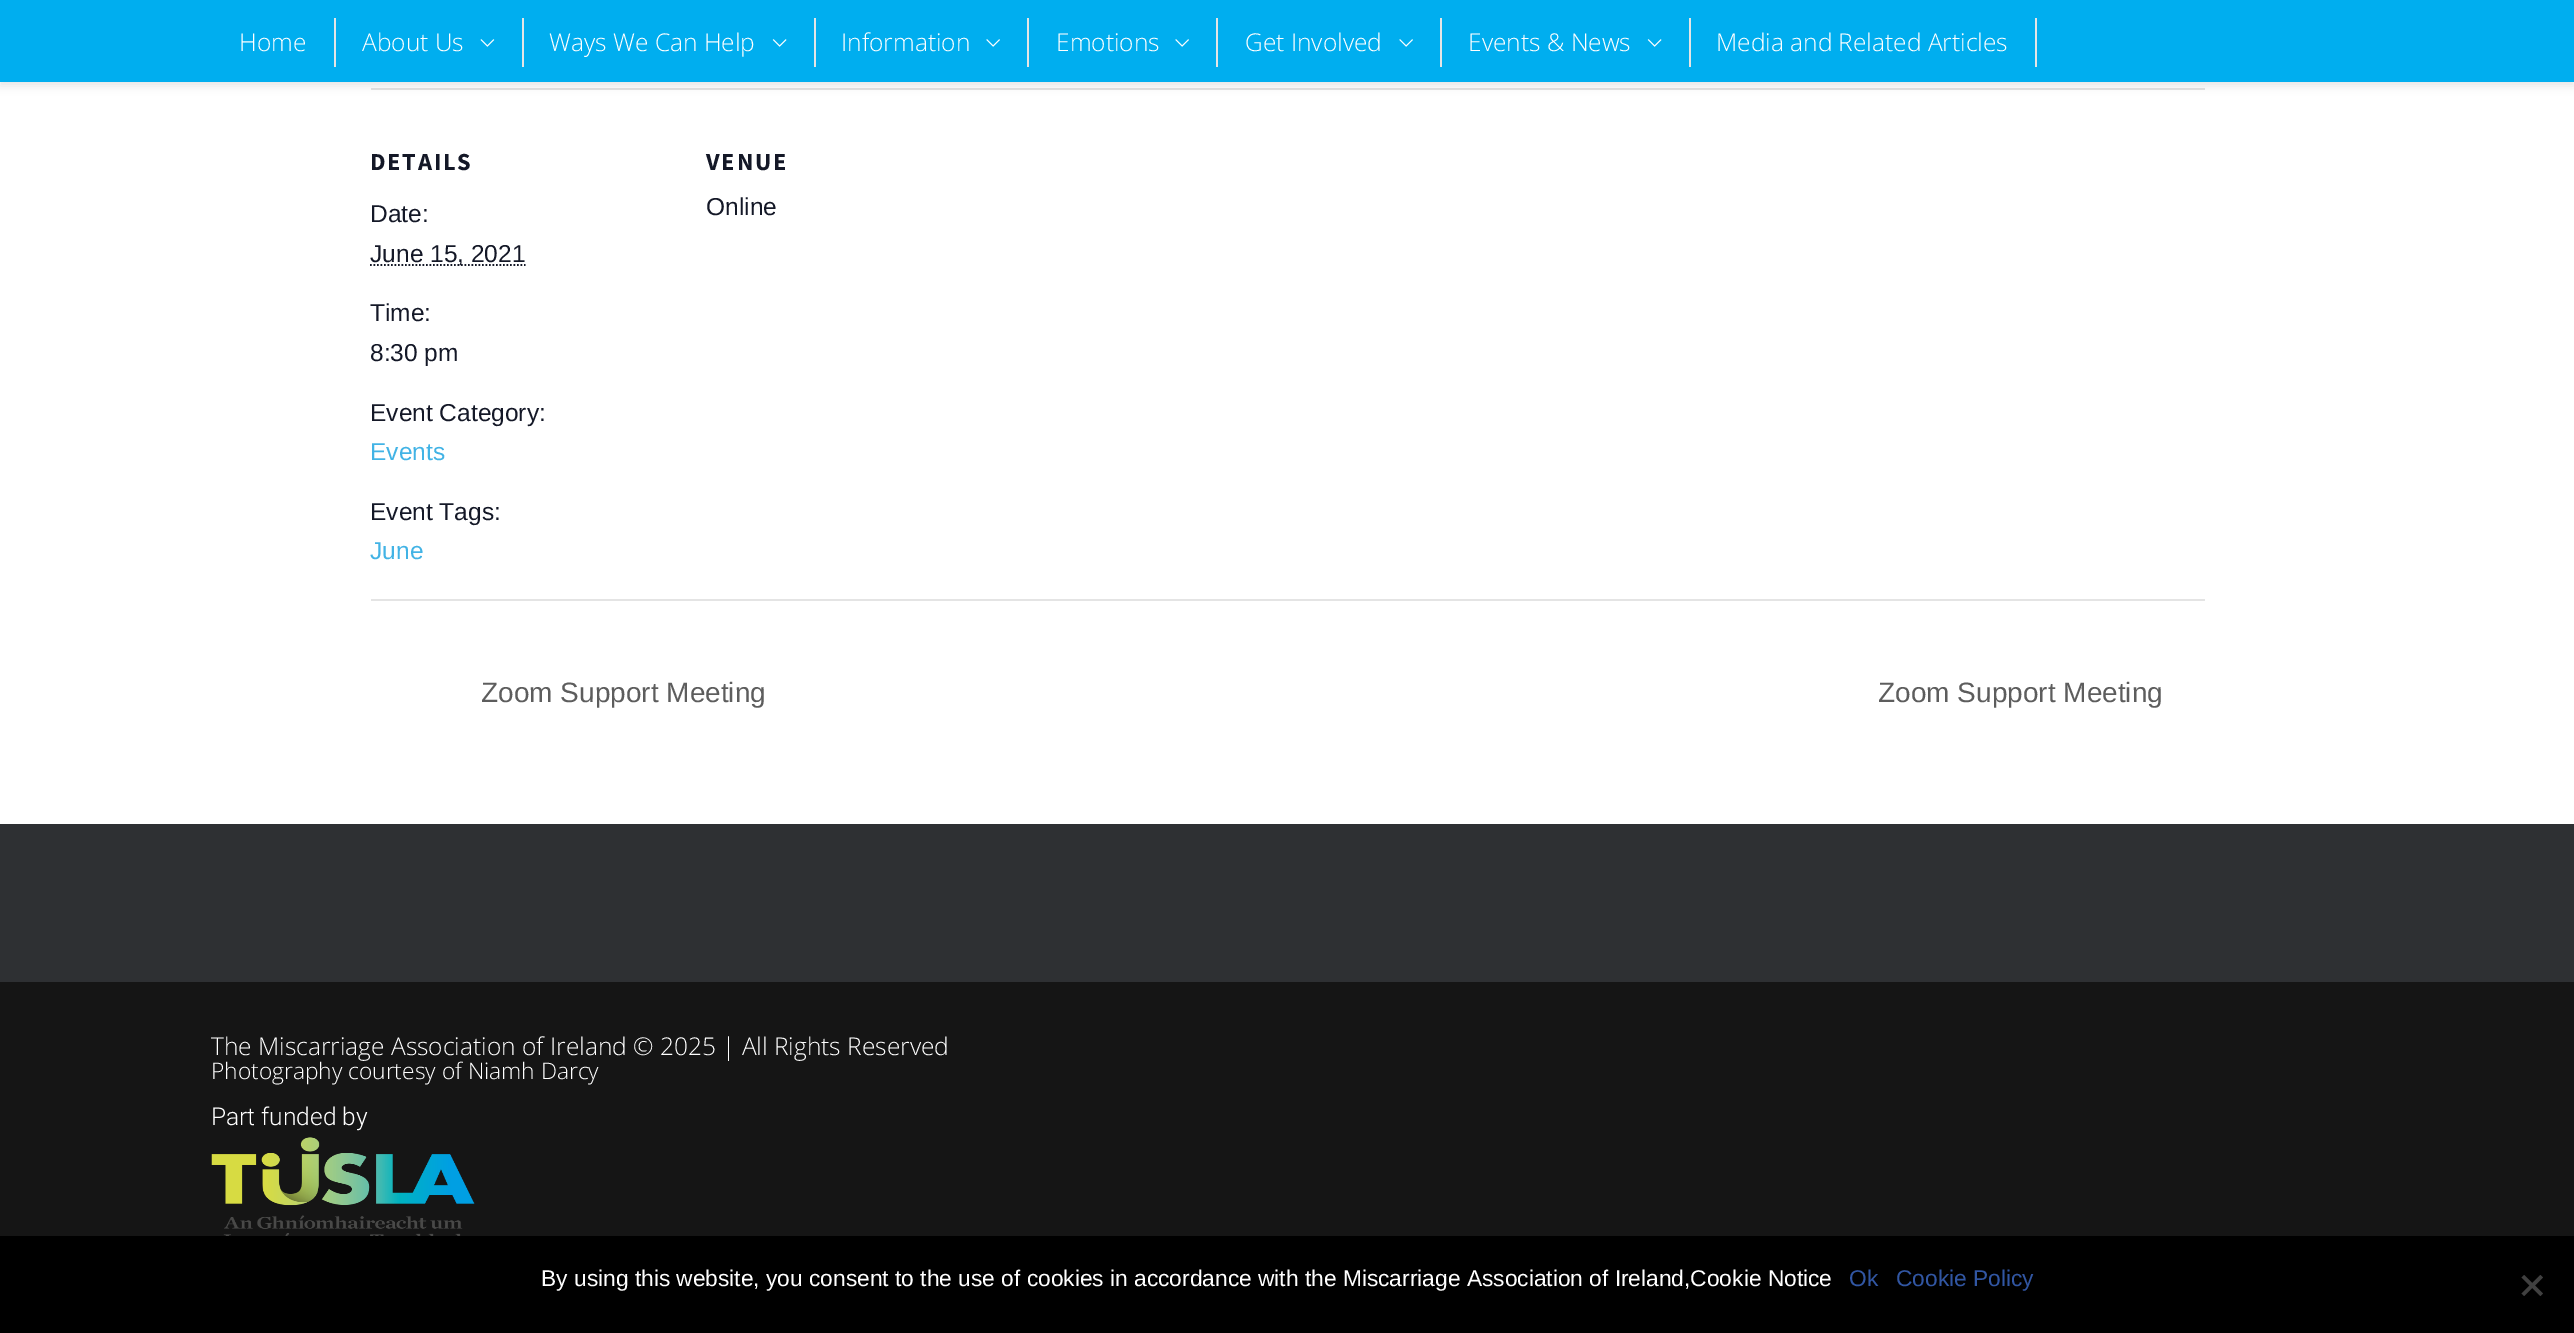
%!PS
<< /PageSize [2574 1333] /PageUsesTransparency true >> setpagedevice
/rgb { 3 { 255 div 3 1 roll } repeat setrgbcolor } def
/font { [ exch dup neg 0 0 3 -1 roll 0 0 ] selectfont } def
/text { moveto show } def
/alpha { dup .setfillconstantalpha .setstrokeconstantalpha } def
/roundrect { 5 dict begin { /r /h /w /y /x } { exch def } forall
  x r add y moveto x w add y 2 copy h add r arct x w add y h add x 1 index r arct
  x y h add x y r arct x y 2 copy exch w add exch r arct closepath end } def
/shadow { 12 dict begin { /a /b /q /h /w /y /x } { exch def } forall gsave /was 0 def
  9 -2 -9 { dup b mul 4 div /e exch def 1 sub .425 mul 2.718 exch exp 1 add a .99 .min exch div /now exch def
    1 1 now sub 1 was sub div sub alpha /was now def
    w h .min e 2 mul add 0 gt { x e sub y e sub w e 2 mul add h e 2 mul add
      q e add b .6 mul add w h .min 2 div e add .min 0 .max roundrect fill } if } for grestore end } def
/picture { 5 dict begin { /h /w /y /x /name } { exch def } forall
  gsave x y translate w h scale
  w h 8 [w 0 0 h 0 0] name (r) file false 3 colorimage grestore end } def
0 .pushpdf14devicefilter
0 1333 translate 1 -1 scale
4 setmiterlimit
255 255 255 rgb
0 0 2574 1333 rectfill
228 228 228 rgb
371 88 1834 2 rectfill
0 0 0 rgb
0 4 2574 82 0 4.5 0.1 shadow
0 174 239 rgb
0 0 2574 82 rectfill
229 229 229 rgb
334 18 2 49 rectfill
(img_01.rgb) 480 39 15 8 picture
522 18 2 49 rectfill
(img_02.rgb) 772 39 15 8 picture
814 18 2 49 rectfill
(img_03.rgb) 986 39 14 8 picture
1027 18 2 49 rectfill
(img_03.rgb) 1175 39 14 8 picture
1216 18 2 49 rectfill
(img_03.rgb) 1399 39 14 8 picture
1440 18 2 49 rectfill
(img_02.rgb) 1647 39 15 8 picture
1689 18 2 49 rectfill
2035 18 2 49 rectfill
20 24 39 rgb
1.8 setlinewidth
[1.75 1.75] 0 setdash
370 265 moveto 155.5 0 rlineto stroke
228 228 228 rgb
371 599 1834 2 rectfill
46 48 51 rgb
0 824 2574 158 rectfill
21 21 21 rgb
0 982 2574 254 rectfill
(img_04.rgb) 211 1137 264 99 picture
0 0 0 rgb
0 1236 2574 97 rectfill
64 64 64 rgb
2540.5 1275 moveto 2.5 2.5 rlineto -19 18.5 rlineto -2.5 -2.5 rlineto closepath fill
2521.5 1277.5 moveto 2.5 -2.5 rlineto 19 18.5 rlineto -2.5 2.5 rlineto closepath fill
/OpenSans-Light 24.5 font
255 255 255 rgb
(Home) 239 51 text
(About Us) 362 51 text
(Ways We Can Help) 549 51 text
(Information) 841 51 text
(Emotions) 1056 51 text
(Get Involved) 1245 51 text
(Events & News) 1468 51 text
(Media and Related Articles) 1716 51 text
/SourceSansPro-Bold 24.5 font
20 24 39 rgb
370 170 moveto 1.75 0 (DETAILS) ashow
/LiberationSans-Regular 24.5 font
(Date:) 370 222 text
(June 15, 2021) 370 262 text
(Time:) 370 321 text
(8:30 pm) 370 361 text
(Event Category:) 370 421 text
66 179 229 rgb
(Events) 370 460 text
20 24 39 rgb
(Event Tags:) 370 520 text
66 179 229 rgb
(June) 370 559 text
/SourceSansPro-Bold 24.5 font
20 24 39 rgb
706 170 moveto 1.75 0 (VENUE) ashow
/LiberationSans-Regular 24.5 font
(Online) 706 215 text
/LiberationSans-Regular 28 font
93 93 93 rgb
(Zoom Support Meeting) 481 702 text
(Zoom Support Meeting) 1878 702 text
/OpenSans-Light 24.5 font
255 255 255 rgb
(The Miscarriage Association of Ireland © 2025 | All Rights Reserved) 211 1055 text
/OpenSans-Light 22.75 font
(Photography courtesy of Niamh Darcy) 211 1079 text
/Roboto-Light 24.5 font
(Part funded by) 211 1125 text
/LiberationSans-Regular 22.75 font
(By using this website, you consent to the use of cookies in accordance with the Miscarriage Association of Ireland,Cookie Notice) 541 1286 text
49 86 163 rgb
(Ok) 1849 1286 text
(Cookie Policy) 1896 1286 text
.poppdf14devicefilter showpage
